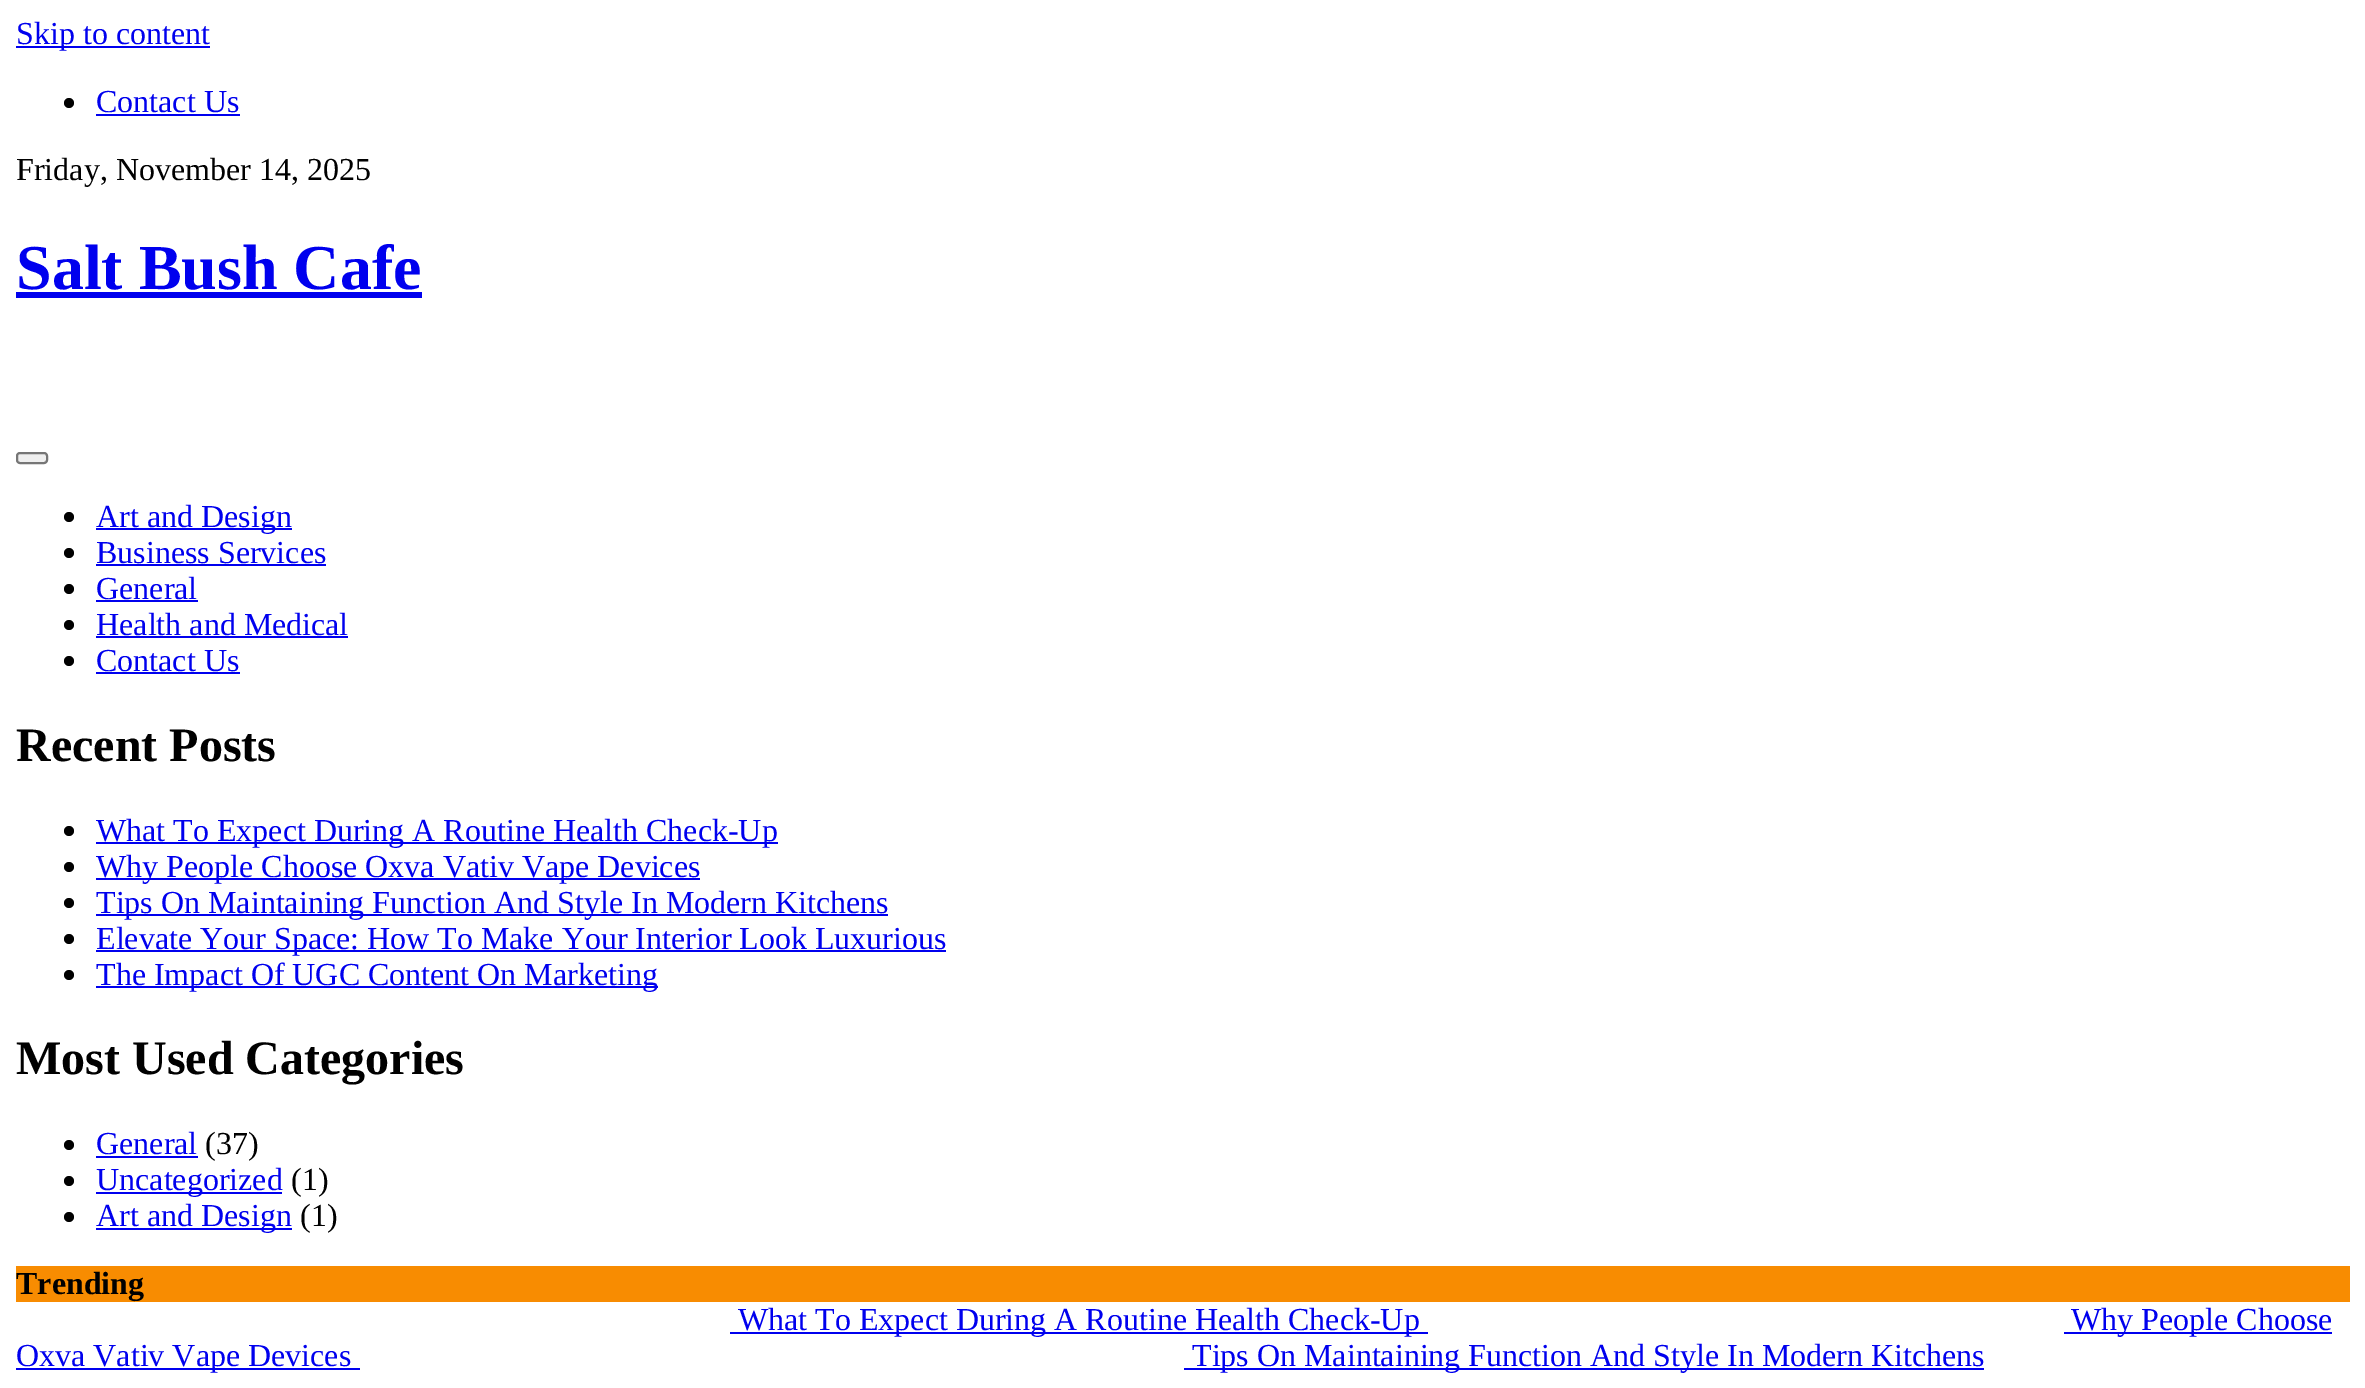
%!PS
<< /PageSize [2365 1388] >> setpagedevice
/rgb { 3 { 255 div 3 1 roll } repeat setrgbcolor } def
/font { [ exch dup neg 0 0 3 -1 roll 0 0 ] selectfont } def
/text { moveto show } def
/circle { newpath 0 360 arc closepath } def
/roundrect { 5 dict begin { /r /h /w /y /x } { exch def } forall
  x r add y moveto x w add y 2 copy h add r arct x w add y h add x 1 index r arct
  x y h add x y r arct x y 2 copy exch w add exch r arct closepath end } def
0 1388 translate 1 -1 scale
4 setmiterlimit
255 255 255 rgb
0 0 2365 1388 rectfill
0 0 238 rgb
16 46 194 2 rectfill
0 0 0 rgb
69 103 5 circle fill
0 0 238 rgb
96 114 144 2 rectfill
16 292 406 6 rectfill
239 239 239 rgb
17 453 30 10 3 roundrect gsave fill grestore
118 118 118 rgb
2 setlinewidth
stroke
0 0 0 rgb
69 517 5 circle fill
0 0 238 rgb
96 528 196 2 rectfill
0 0 0 rgb
69 553 5 circle fill
0 0 238 rgb
96 564 230 2 rectfill
0 0 0 rgb
69 589 5 circle fill
0 0 238 rgb
96 600 102 2 rectfill
0 0 0 rgb
69 625 5 circle fill
0 0 238 rgb
96 636 252 2 rectfill
0 0 0 rgb
69 661 5 circle fill
0 0 238 rgb
96 672 144 2 rectfill
0 0 0 rgb
69 831 5 circle fill
0 0 238 rgb
96 842 682 2 rectfill
0 0 0 rgb
69 867 5 circle fill
0 0 238 rgb
96 878 604 2 rectfill
0 0 0 rgb
69 903 5 circle fill
0 0 238 rgb
96 914 792 2 rectfill
0 0 0 rgb
69 939 5 circle fill
0 0 238 rgb
96 950 850 2 rectfill
0 0 0 rgb
69 975 5 circle fill
0 0 238 rgb
96 986 562 2 rectfill
0 0 0 rgb
69 1145 5 circle fill
0 0 238 rgb
96 1156 102 2 rectfill
0 0 0 rgb
69 1181 5 circle fill
0 0 238 rgb
96 1192 186 2 rectfill
0 0 0 rgb
69 1217 5 circle fill
0 0 238 rgb
96 1228 196 2 rectfill
248 140 1 rgb
16 1266 2334 36 rectfill
0 0 238 rgb
730 1332 698 2 rectfill
2064 1332 268 2 rectfill
16 1368 344 2 rectfill
1184 1368 800 2 rectfill
/LiberationSerif-Regular 32 font
(Skip to content) 16 44 text
(Contact Us) 96 112 text
0 0 0 rgb
(Friday, November 14, 2025) 16 180 text
/LiberationSerif-Bold 64 font
0 0 238 rgb
(Salt Bush Cafe) 16 289 text
/LiberationSerif-Regular 32 font
(Art and Design) 96 527 text
(Business Services) 96 563 text
(General) 96 599 text
(Health and Medical) 96 635 text
(Contact Us) 96 671 text
/LiberationSerif-Bold 48 font
0 0 0 rgb
(Recent Posts) 16 761 text
/LiberationSerif-Regular 32 font
0 0 238 rgb
(What To Expect During A Routine Health Check-Up) 96 841 text
(Why People Choose Oxva Vativ Vape Devices) 96 877 text
(Tips On Maintaining Function And Style In Modern Kitchens) 96 913 text
(Elevate Your Space: How To Make Your Interior Look Luxurious) 96 949 text
(The Impact Of UGC Content On Marketing) 96 985 text
/LiberationSerif-Bold 48 font
0 0 0 rgb
(Most Used Categories) 16 1074 text
/LiberationSerif-Regular 32 font
0 0 238 rgb
(General) 96 1154 text
0 0 0 rgb
(\(37\)) 205 1154 text
0 0 238 rgb
(Uncategorized) 96 1190 text
0 0 0 rgb
(\(1\)) 291 1190 text
0 0 238 rgb
(Art and Design) 96 1226 text
0 0 0 rgb
(\(1\)) 300 1226 text
/LiberationSerif-Bold 32 font
(Trending) 16 1294 text
/LiberationSerif-Regular 32 font
0 0 238 rgb
(What To Expect During A Routine Health Check-Up) 738 1330 text
(Why People Choose) 2071 1330 text
(Oxva Vativ Vape Devices) 16 1366 text
(Tips On Maintaining Function And Style In Modern Kitchens) 1192 1366 text
showpage
